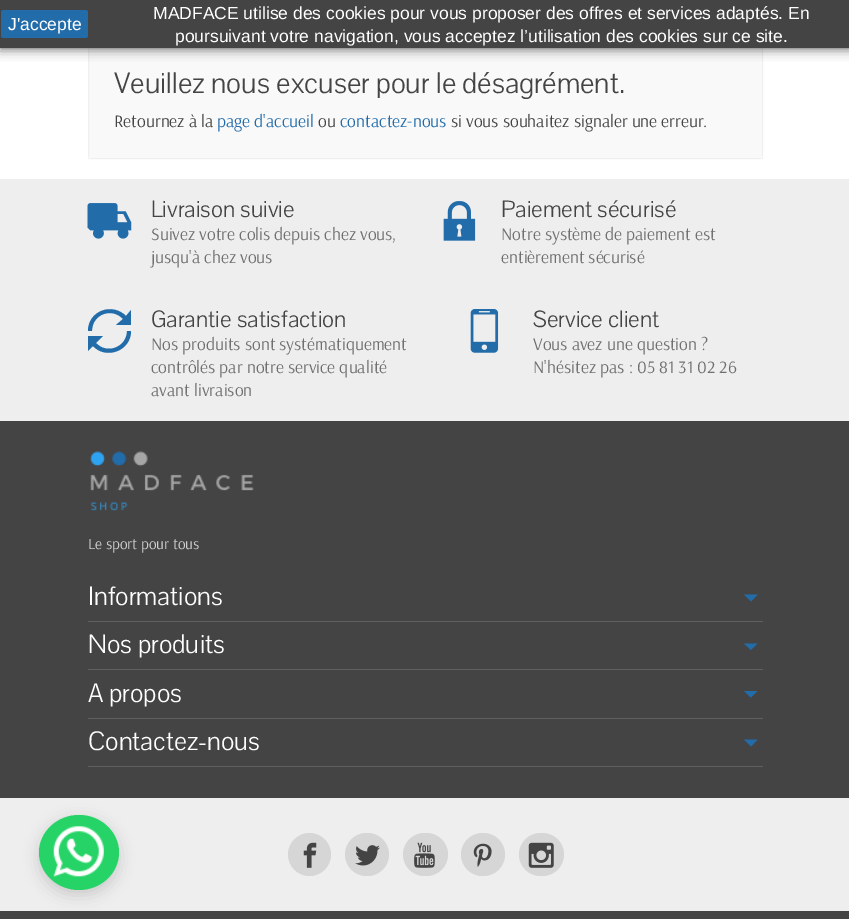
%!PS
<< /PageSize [849 919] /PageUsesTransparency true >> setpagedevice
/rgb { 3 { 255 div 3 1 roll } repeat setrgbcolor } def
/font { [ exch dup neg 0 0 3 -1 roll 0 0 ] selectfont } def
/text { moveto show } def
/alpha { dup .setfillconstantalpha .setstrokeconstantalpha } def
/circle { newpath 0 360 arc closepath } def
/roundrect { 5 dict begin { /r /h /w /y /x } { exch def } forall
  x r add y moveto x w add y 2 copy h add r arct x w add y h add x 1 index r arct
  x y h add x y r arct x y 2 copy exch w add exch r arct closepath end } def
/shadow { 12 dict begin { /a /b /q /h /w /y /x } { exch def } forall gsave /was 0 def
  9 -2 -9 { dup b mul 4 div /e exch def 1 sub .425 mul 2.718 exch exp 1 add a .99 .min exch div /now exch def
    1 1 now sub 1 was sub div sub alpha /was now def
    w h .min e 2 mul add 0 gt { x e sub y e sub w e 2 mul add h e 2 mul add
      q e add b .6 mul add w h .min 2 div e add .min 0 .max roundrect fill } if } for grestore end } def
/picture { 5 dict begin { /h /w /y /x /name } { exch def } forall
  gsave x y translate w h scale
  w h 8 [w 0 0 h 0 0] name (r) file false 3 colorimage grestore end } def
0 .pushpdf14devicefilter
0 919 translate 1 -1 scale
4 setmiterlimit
255 255 255 rgb
0 0 849 919 rectfill
68 68 68 rgb
0 421 849 377 rectfill
249 249 249 rgb
88 44 675 115 5 roundrect fill
0.04 alpha
0 0 0 rgb
88.5 44.5 674 114 rectstroke
1 alpha
68 68 68 rgb
0 0 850 48 0 6 1 shadow
0 0 849 48 rectfill
34 108 170 rgb
1 10 87 28 2.5 roundrect fill
(img_01.rgb) 90 451 164 60 picture
96 96 96 rgb
88 621 675 1 rectfill
34 108 170 rgb
744 594.5 moveto 13.5 0 rlineto -6.5 7 rlineto closepath fill
96 96 96 rgb
88 669 675 1 rectfill
34 108 170 rgb
744 643.5 moveto 13.5 0 rlineto -6.5 6.5 rlineto closepath fill
96 96 96 rgb
88 718 675 1 rectfill
34 108 170 rgb
744 691 moveto 13.5 0 rlineto -6.5 6.5 rlineto closepath fill
96 96 96 rgb
88 766 675 1 rectfill
34 108 170 rgb
744 739.5 moveto 13.5 0 rlineto -6.5 7 rlineto closepath fill
238 238 238 rgb
0 179 849 242 rectfill
(img_02.rgb) 87 203 45 36 picture
(img_03.rgb) 443 201 33 40 picture
34 108 170 rgb
126 316 moveto -14 -14 -38 -5 -38 15 rcurveto 4 0 rlineto 0 -17 20 -24 31 -12 rcurveto -7 6 rlineto 15 0 rlineto 0 -15 rlineto closepath 127 331 moveto 0 16 -20 24 -31 12 rcurveto 7 -7 rlineto -15 0 rlineto 0 15 rlineto 5 -5 rlineto 13 14 38 5 38 -15 rcurveto closepath fill
(img_04.rgb) 470 309 29 44 picture
238 238 238 rgb
0 798 849 113 rectfill
214 214 214 rgb
309.5 854.5 21.5 circle fill
(img_05.rgb) 303 842 14 26 picture
345 833 44 43 21.5 roundrect fill
(img_06.rgb) 355 845 25 21 picture
403 833 45 43 21.5 roundrect fill
(img_07.rgb) 414 842 21 26 picture
461 833 44 43 21.5 roundrect fill
(img_08.rgb) 473 843 19 24 picture
519 833 45 43 21.5 roundrect fill
(img_09.rgb) 528 842 26 26 picture
68 68 68 rgb
0 911 849 8 rectfill
0 0 0 rgb
39 820 80 75 37.5 7.5 0.15 shadow
37 211 102 rgb
79 815 moveto 22 0 40 17 40 37.5 rcurveto 0 20.5 -18 37.5 -40 37.5 rcurveto -22 0 -40 -17 -40 -37.5 rcurveto 0 -20.5 18 -37.5 40 -37.5 rcurveto closepath fill
(img_10.rgb) 53 826 51 51 picture
/LiberationSans-Regular 17.5 font
255 255 255 rgb
(J'accepte) 8 30 text
(MADFACE utilise des cookies pour vous proposer des offres et services adaptés. En) 153 19 text
(poursuivant votre navigation, vous acceptez l’utilisation des cookies sur ce site.) 175 42 text
/Arsenal-Regular 15.25 font
208 208 208 rgb
(Le sport pour tous) 88 549 text
/Pavanam-Regular 27.25 font
255 255 255 rgb
(Informations) 88 605 text
(Nos produits) 88 653 text
(A propos) 88 702 text
(Contactez-nous) 88 750 text
/Pavanam-Regular 24.25 font
68 68 68 rgb
(Livraison suivie) 151 217 text
/Arsenal-Regular 17.5 font
111 111 111 rgb
(Suivez votre colis depuis chez vous,) 151 240 text
(jusqu'à chez vous) 151 263 text
/Pavanam-Regular 24.25 font
68 68 68 rgb
(Paiement sécurisé) 501 217 text
/Arsenal-Regular 17.5 font
111 111 111 rgb
(Notre système de paiement est) 501 240 text
(entièrement sécurisé) 501 263 text
/Pavanam-Regular 24.25 font
68 68 68 rgb
(Garantie satisfaction) 151 327 text
/Arsenal-Regular 17.5 font
111 111 111 rgb
(Nos produits sont systématiquement) 151 350 text
(contrôlés par notre service qualité) 151 373 text
(avant livraison) 151 396 text
/Pavanam-Regular 24.25 font
68 68 68 rgb
(Service client) 533 327 text
/Arsenal-Regular 17.5 font
111 111 111 rgb
(Vous avez une question ?) 533 350 text
(N'hésitez pas : 05 81 31 02 26) 533 373 text
/Pavanam-Regular 30.25 font
68 68 68 rgb
(Veuillez nous excuser pour le désagrément.) 114 93 text
/Arsenal-Regular 17.5 font
(Retournez à la) 114 127 text
34 108 170 rgb
(page d'accueil) 217 127 text
68 68 68 rgb
(ou) 318 127 text
34 108 170 rgb
(contactez-nous) 340 127 text
68 68 68 rgb
(si vous souhaitez signaler une erreur.) 451 127 text
.poppdf14devicefilter showpage
